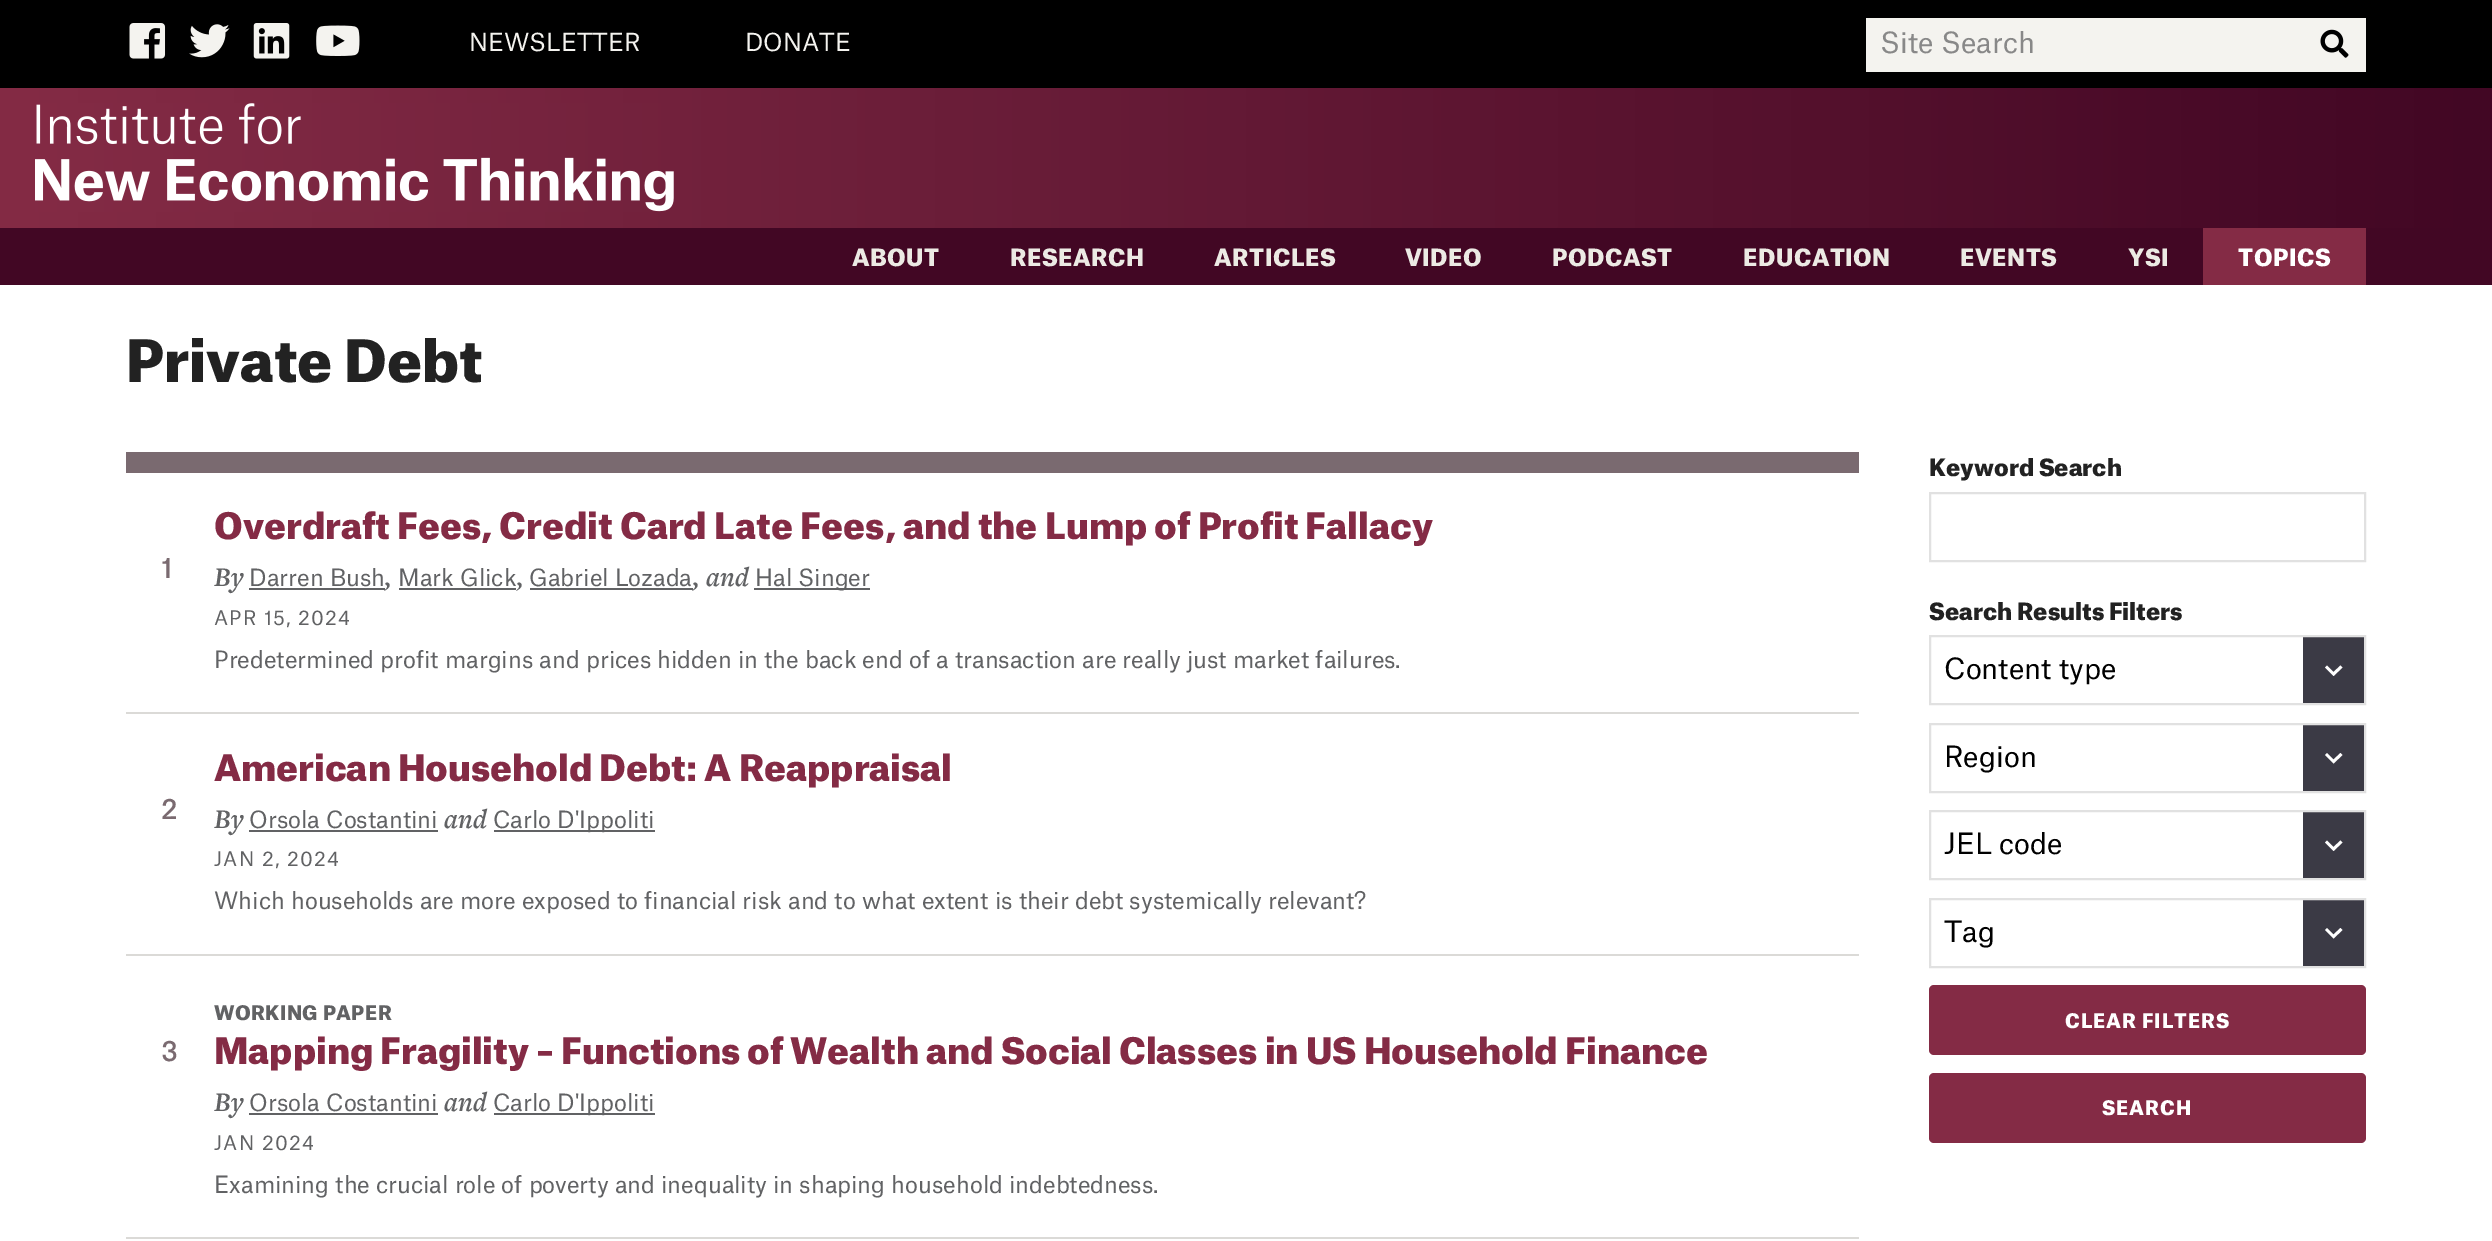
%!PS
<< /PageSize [2492 1241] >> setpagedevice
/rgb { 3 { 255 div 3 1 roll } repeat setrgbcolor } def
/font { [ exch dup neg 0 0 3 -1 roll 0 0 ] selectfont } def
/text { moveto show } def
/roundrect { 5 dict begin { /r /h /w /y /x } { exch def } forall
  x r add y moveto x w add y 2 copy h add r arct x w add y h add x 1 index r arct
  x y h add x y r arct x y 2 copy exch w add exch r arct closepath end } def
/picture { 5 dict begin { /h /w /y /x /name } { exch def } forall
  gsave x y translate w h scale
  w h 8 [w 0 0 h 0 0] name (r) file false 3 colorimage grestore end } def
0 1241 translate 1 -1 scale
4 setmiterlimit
255 255 255 rgb
0 0 2492 1241 rectfill
gsave 0 88 moveto 2492 0 rlineto 0 140 rlineto -2492 0 rlineto closepath clip newpath
<< /ShadingType 2 /ColorSpace /DeviceRGB /Coords [0 143 2492 143] /Extend [true true] /Function << /FunctionType 2 /Domain [0 1] /C0 [0.518 0.169 0.271] /C1 [0.259 0.027 0.141] /N 1 >> >> shfill grestore
0 0 0 rgb
0 0 2492 88 rectfill
(img_01.rgb) 129 23 37 36 picture
(img_02.rgb) 189 24 41 34 picture
(img_03.rgb) 253 23 37 36 picture
(img_04.rgb) 316 25 44 31 picture
244 243 239 rgb
1866 18 500 54 rectfill
(img_05.rgb) 2320 29 29 29 picture
(img_06.rgb) 35 103 639 109 picture
66 7 36 rgb
0 228 2492 57 rectfill
132 43 69 rgb
2203 228 163 57 rectfill
122 106 112 rgb
126 452 1733 21 rectfill
219 218 215 rgb
126 712 1733 2 rectfill
97 98 100 rgb
249 588 136 2 rectfill
399 588 117 2 rectfill
530 588 163 2 rectfill
754 588 116 2 rectfill
219 218 215 rgb
126 954 1733 2 rectfill
97 98 100 rgb
249 830 189 2 rectfill
494 830 161 2 rectfill
219 218 215 rgb
126 1237 1733 2 rectfill
97 98 100 rgb
249 1113 189 2 rectfill
494 1113 161 2 rectfill
225 225 225 rgb
2 setlinewidth
1930 493 435 68 rectstroke
59 58 69 rgb
2303 637 61 66 rectfill
255 255 255 rgb
2340.5 665.5 moveto -7 6.5 rlineto -6.5 -6.5 rlineto -2 2 rlineto 8.5 8.5 rlineto 9 -8.5 rlineto closepath fill
225 225 225 rgb
1930 636 435 68 rectstroke
59 58 69 rgb
2303 725 61 66 rectfill
255 255 255 rgb
2340.5 753 moveto -7 6.5 rlineto -6.5 -6.5 rlineto -2 2 rlineto 8.5 8.5 rlineto 9 -8.5 rlineto closepath fill
225 225 225 rgb
1930 724 435 68 rectstroke
59 58 69 rgb
2303 812 61 66 rectfill
255 255 255 rgb
2340.5 840.5 moveto -7 6.5 rlineto -6.5 -6.5 rlineto -2 2 rlineto 8.5 8.5 rlineto 9 -8.5 rlineto closepath fill
225 225 225 rgb
1930 811 435 68 rectstroke
59 58 69 rgb
2303 900 61 66 rectfill
255 255 255 rgb
2340.5 928 moveto -7 6.5 rlineto -6.5 -6.5 rlineto -2 2 rlineto 8.5 8.5 rlineto 9 -8.5 rlineto closepath fill
225 225 225 rgb
1930 899 435 68 rectstroke
132 43 69 rgb
1929 985 437 70 5 roundrect fill
1929 1073 437 70 5 roundrect fill
/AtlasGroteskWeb-Regular 23.75 font
244 243 239 rgb
(NEWSLETTER) 469 51 text
(DONATE) 745 51 text
/AtlasGroteskWeb-Regular 28 font
136 136 136 rgb
(Site Search) 1880 53 text
/AtlasGroteskWeb-Black 22.75 font
236 234 228 rgb
852 266 moveto 0.5 0 (ABOUT) ashow
1010 266 moveto 0.5 0 (RESEARCH) ashow
1214 266 moveto 0.5 0 (ARTICLES) ashow
1405 266 moveto 0.5 0 (VIDEO) ashow
1552 266 moveto 0.5 0 (PODCAST) ashow
1743 266 moveto 0.5 0 (EDUCATION) ashow
1960 266 moveto 0.5 0 (EVENTS) ashow
2128 266 moveto 0.5 0 (YSI) ashow
255 255 255 rgb
2238 266 moveto 0.5 0 (TOPICS) ashow
/AtlasGroteskWeb-Black 56 font
34 34 34 rgb
(Private Debt) 126 382 text
/AtlasGroteskWeb-Black 35 font
132 43 69 rgb
(Overdraft Fees, Credit Card Late Fees, and the Lump of Profit Fallacy) 214 539 text
/AtlasGroteskWeb-Bold 26 font
122 106 112 rgb
(1) 161 578 text
/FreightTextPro-SemiBoldItalic 28 font
97 98 100 rgb
(By) 214 586 text
/AtlasGroteskWeb-Regular 22.75 font
(Darren Bush) 249 586 text
/FreightTextPro-SemiBoldItalic 28 font
(,) 385 586 text
/AtlasGroteskWeb-Regular 22.75 font
(Mark Glick) 398 586 text
/FreightTextPro-SemiBoldItalic 28 font
(,) 517 586 text
/AtlasGroteskWeb-Regular 22.75 font
(Gabriel Lozada) 529 586 text
/FreightTextPro-SemiBoldItalic 28 font
(, and) 693 586 text
/AtlasGroteskWeb-Regular 22.75 font
(Hal Singer) 755 586 text
/AtlasGroteskWeb-Regular 19.25 font
214 625 moveto 1.2 0 (APR 15, 2024) ashow
/AtlasGroteskWeb-Regular 22.75 font
(Predetermined profit margins and prices hidden in the back end of a transaction are really just market failures.) 214 668 text
/AtlasGroteskWeb-Black 35 font
132 43 69 rgb
(American Household Debt: A Reappraisal) 214 781 text
/AtlasGroteskWeb-Bold 26 font
122 106 112 rgb
(2) 161 819 text
/FreightTextPro-SemiBoldItalic 28 font
97 98 100 rgb
(By) 214 828 text
/AtlasGroteskWeb-Regular 22.75 font
(Orsola Costantini) 249 828 text
/FreightTextPro-SemiBoldItalic 28 font
(and) 444 828 text
/AtlasGroteskWeb-Regular 22.75 font
(Carlo D'Ippoliti) 493 828 text
/AtlasGroteskWeb-Regular 19.25 font
214 866 moveto 1.2 0 (JAN 2, 2024) ashow
/AtlasGroteskWeb-Regular 22.75 font
(Which households are more exposed to financial risk and to what extent is their debt systemically relevant?) 214 909 text
/AtlasGroteskWeb-Black 19.25 font
214 1020 moveto 0.4 0 (WORKING PAPER) ashow
/AtlasGroteskWeb-Bold 26 font
122 106 112 rgb
(3) 161 1061 text
/AtlasGroteskWeb-Black 35 font
132 43 69 rgb
(Mapping Fragility – Functions of Wealth and Social Classes in US Household Finance) 214 1064 text
/FreightTextPro-SemiBoldItalic 28 font
97 98 100 rgb
(By) 214 1111 text
/AtlasGroteskWeb-Regular 22.75 font
(Orsola Costantini) 249 1111 text
/FreightTextPro-SemiBoldItalic 28 font
(and) 444 1111 text
/AtlasGroteskWeb-Regular 22.75 font
(Carlo D'Ippoliti) 493 1111 text
/AtlasGroteskWeb-Regular 19.25 font
214 1150 moveto 1.2 0 (JAN 2024) ashow
/AtlasGroteskWeb-Regular 22.75 font
(Examining the crucial role of poverty and inequality in shaping household indebtedness.) 214 1193 text
/AtlasGroteskWeb-Black 22.75 font
34 34 34 rgb
(Keyword Search) 1929 476 text
(Search Results Filters) 1929 620 text
/AtlasGroteskWeb-Regular 28 font
0 0 0 rgb
(Content type) 1944 679 text
(Region) 1944 767 text
(JEL code) 1944 854 text
(Tag) 1944 942 text
/AtlasGroteskWeb-Black 19.25 font
255 255 255 rgb
2065 1028 moveto 0.9 0 (CLEAR FILTERS) ashow
2102 1115 moveto 0.9 0 (SEARCH) ashow
showpage
